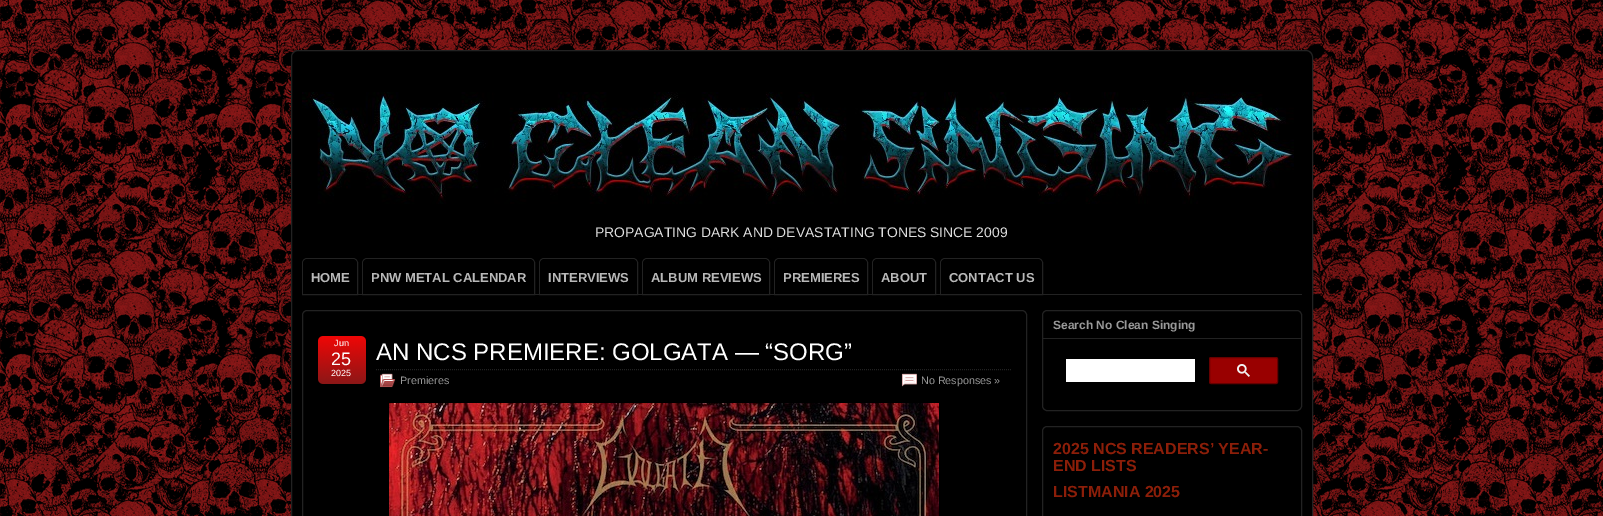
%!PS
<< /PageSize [1603 516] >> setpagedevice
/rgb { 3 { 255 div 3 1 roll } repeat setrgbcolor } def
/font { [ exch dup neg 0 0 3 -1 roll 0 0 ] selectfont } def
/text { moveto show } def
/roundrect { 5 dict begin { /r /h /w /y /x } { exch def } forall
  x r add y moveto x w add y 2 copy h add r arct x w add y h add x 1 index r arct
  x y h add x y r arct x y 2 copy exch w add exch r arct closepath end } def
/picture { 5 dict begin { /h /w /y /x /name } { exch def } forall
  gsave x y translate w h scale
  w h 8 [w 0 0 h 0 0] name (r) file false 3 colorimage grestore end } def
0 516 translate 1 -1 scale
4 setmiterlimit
255 255 255 rgb
0 0 1603 516 rectfill
(img_01.rgb) 0 0 1603 516 picture
0 0 0 rgb
291.5 50.5 1021 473 6.5 roundrect gsave fill grestore
34 34 34 rgb
stroke
(img_02.rgb) 302 92 992 112 picture
358 294 944 1 rectfill
307 258.5 moveto 46 0 rlineto 2.5 0 4.5 2 4.5 4.5 rcurveto 0 31.5 rlineto -55 0 rlineto 0 -31.5 rlineto 0 -2.5 2 -4.5 4.5 -4.5 rcurveto closepath stroke
0 0 0 rgb
308 259 moveto 44 0 rlineto 3 0 5 2 5 5 rcurveto 0 30 rlineto -54 0 rlineto 0 -30 rlineto 0 -3 2 -5 5 -5 rcurveto closepath fill
34 34 34 rgb
367 258.5 moveto 163 0 rlineto 2.5 0 4.5 2 4.5 4.5 rcurveto 0 31.5 rlineto -172 0 rlineto 0 -31.5 rlineto 0 -2.5 2 -4.5 4.5 -4.5 rcurveto closepath stroke
0 0 0 rgb
368 259 moveto 161 0 rlineto 3 0 5 2 5 5 rcurveto 0 30 rlineto -171 0 rlineto 0 -30 rlineto 0 -3 2 -5 5 -5 rcurveto closepath fill
34 34 34 rgb
544 258.5 moveto 89 0 rlineto 2.5 0 4.5 2 4.5 4.5 rcurveto 0 31.5 rlineto -98 0 rlineto 0 -31.5 rlineto 0 -2.5 2 -4.5 4.5 -4.5 rcurveto closepath stroke
0 0 0 rgb
545 259 moveto 87 0 rlineto 3 0 5 2 5 5 rcurveto 0 30 rlineto -97 0 rlineto 0 -30 rlineto 0 -3 2 -5 5 -5 rcurveto closepath fill
34 34 34 rgb
647 258.5 moveto 118 0 rlineto 2.5 0 4.5 2 4.5 4.5 rcurveto 0 31.5 rlineto -127 0 rlineto 0 -31.5 rlineto 0 -2.5 2 -4.5 4.5 -4.5 rcurveto closepath stroke
0 0 0 rgb
648 259 moveto 116 0 rlineto 3 0 5 2 5 5 rcurveto 0 30 rlineto -126 0 rlineto 0 -30 rlineto 0 -3 2 -5 5 -5 rcurveto closepath fill
34 34 34 rgb
779 258.5 moveto 84 0 rlineto 2.5 0 4.5 2 4.5 4.5 rcurveto 0 31.5 rlineto -93 0 rlineto 0 -31.5 rlineto 0 -2.5 2 -4.5 4.5 -4.5 rcurveto closepath stroke
0 0 0 rgb
780 259 moveto 82 0 rlineto 3 0 5 2 5 5 rcurveto 0 30 rlineto -92 0 rlineto 0 -30 rlineto 0 -3 2 -5 5 -5 rcurveto closepath fill
34 34 34 rgb
877 258.5 moveto 54 0 rlineto 2.5 0 4.5 2 4.5 4.5 rcurveto 0 31.5 rlineto -63 0 rlineto 0 -31.5 rlineto 0 -2.5 2 -4.5 4.5 -4.5 rcurveto closepath stroke
0 0 0 rgb
878 259 moveto 52 0 rlineto 3 0 5 2 5 5 rcurveto 0 30 rlineto -62 0 rlineto 0 -30 rlineto 0 -3 2 -5 5 -5 rcurveto closepath fill
34 34 34 rgb
945 258.5 moveto 93 0 rlineto 2.5 0 4.5 2 4.5 4.5 rcurveto 0 31.5 rlineto -102 0 rlineto 0 -31.5 rlineto 0 -2.5 2 -4.5 4.5 -4.5 rcurveto closepath stroke
0 0 0 rgb
946 259 moveto 91 0 rlineto 3 0 5 2 5 5 rcurveto 0 30 rlineto -101 0 rlineto 0 -30 rlineto 0 -3 2 -5 5 -5 rcurveto closepath fill
34 34 34 rgb
302.5 310.5 724 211 4.5 roundrect stroke
(img_03.rgb) 318 336 48 48 picture
[1 1] 0 setdash
376 369.5 moveto 635 0 rlineto stroke
(img_04.rgb) 380 373 16 15 picture
(img_05.rgb) 901 373 16 14 picture
(img_06.rgb) 389 403 550 113 picture
[] 0 setdash
1042.5 310.5 259 100 4.5 roundrect stroke
1043 338 258 1 rectfill
255 255 255 rgb
1066 359 129 23 rectfill
153 0 0 rgb
1209.5 357.5 68 26 1.5 roundrect gsave fill grestore
102 0 0 rgb
stroke
(img_07.rgb) 1237 364 13 13 picture
34 34 34 rgb
1042.5 426.5 259 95 4.5 roundrect stroke
/LiberationSans-Regular 13.9 font
222 222 222 rgb
(PROPAGATING DARK AND DEVASTATING TONES SINCE 2009) 595 237 text
/LiberationSans-Bold 13 font
184 184 184 rgb
(HOME) 311 282 text
(PNW METAL CALENDAR) 371 282 text
(INTERVIEWS) 548 282 text
(ALBUM REVIEWS) 651 282 text
(PREMIERES) 783 282 text
(ABOUT) 881 282 text
(CONTACT US) 949 282 text
/LiberationSans-Regular 9 font
255 255 255 rgb
(Jun) 334 346 text
/LiberationSans-Regular 18 font
(25) 331 365 text
/LiberationSans-Regular 9 font
(2025) 331 376 text
/LiberationSans-Regular 24 font
(AN NCS PREMIERE: GOLGATA — “SORG”) 376 360 text
/LiberationSans-Regular 10.75 font
153 153 153 rgb
(Premieres) 400 384 text
(No Responses ») 921 384 text
/LiberationSans-Bold 12 font
(Search No Clean Singing) 1053 329 text
/LiberationSans-Bold 16 font
140 30 9 rgb
(2025 NCS READERS’ YEAR-) 1053 454 text
(END LISTS) 1053 471 text
(LISTMANIA 2025) 1053 497 text
showpage
